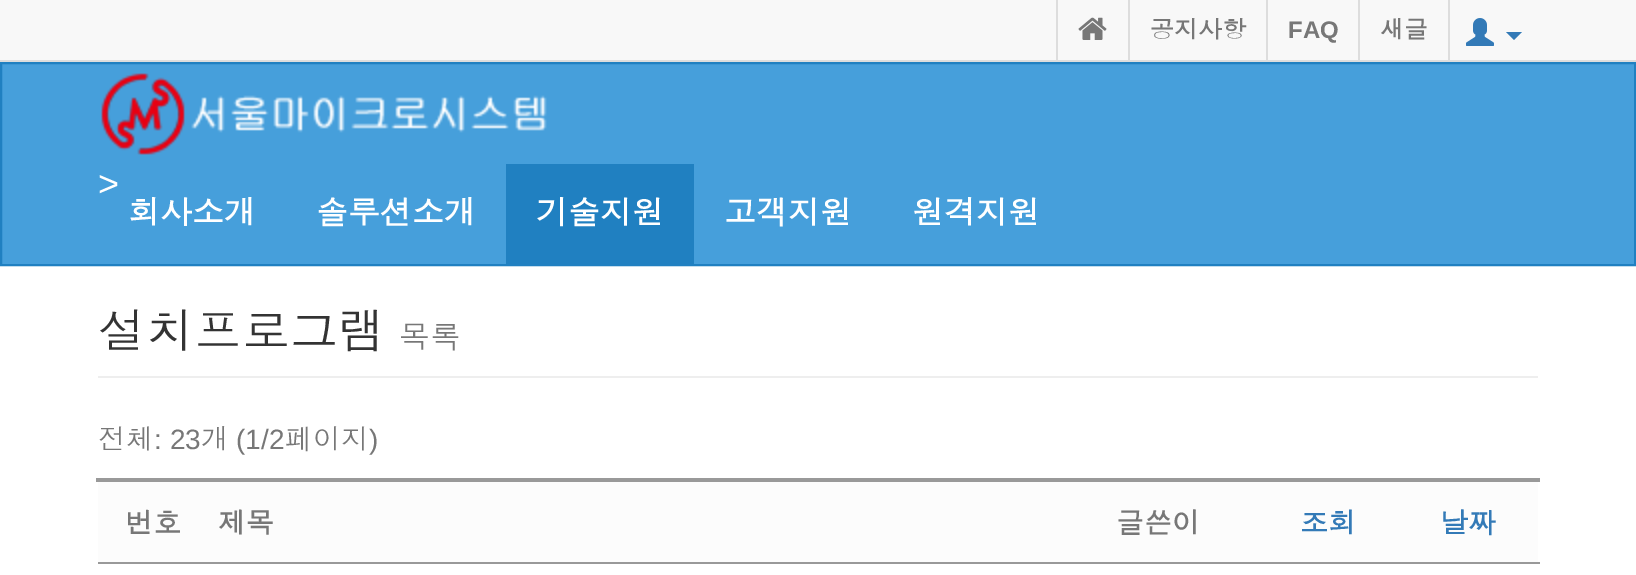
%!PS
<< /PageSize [1636 575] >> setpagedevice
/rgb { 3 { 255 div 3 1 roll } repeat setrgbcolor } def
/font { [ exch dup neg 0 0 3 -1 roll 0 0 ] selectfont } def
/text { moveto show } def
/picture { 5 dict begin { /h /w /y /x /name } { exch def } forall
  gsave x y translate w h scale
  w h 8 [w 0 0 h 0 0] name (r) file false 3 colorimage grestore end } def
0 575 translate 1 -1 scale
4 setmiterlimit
255 255 255 rgb
0 0 1636 575 rectfill
248 248 248 rgb
0 0 1636 60 rectfill
221 221 221 rgb
0 60 1636 2 rectfill
1056 0 2 60 rectfill
(img_01.rgb) 1078 17 29 23 picture
1128 0 2 60 rectfill
1266 0 2 60 rectfill
1448 0 2 60 rectfill
1358 0 2 60 rectfill
(img_02.rgb) 1466 18 28 28 picture
51 122 183 rgb
1506 32 moveto 16 0 rlineto -8 8 rlineto closepath fill
70 159 219 rgb
1 63 moveto 1634 0 rlineto 0 202 rlineto -1634 0 rlineto closepath gsave fill grestore
32 128 193 rgb
2 setlinewidth
stroke
(img_03.rgb) 101 73 446 82 picture
506 164 188 100 rectfill
238 238 238 rgb
98 376 1440 2 rectfill
252 252 252 rgb
98 482 1440 80 rectfill
153 153 153 rgb
98 562 1442 2 rectfill
96 478 1444 4 rectfill
/Dotum-Bold 24 font
119 119 119 rgb
(공지사항) 1150 38 text
/LiberationSans-Bold 24 font
(FAQ) 1288 38 text
/Dotum-Bold 24 font
(새글) 1380 38 text
/LiberationSans-Regular 36 font
255 255 255 rgb
(>) 98 196 text
/Dotum-Bold 32 font
(회사소개) 128 224 text
(솔루션소개) 316 224 text
(기술지원) 536 224 text
(고객지원) 724 224 text
(원격지원) 912 224 text
/Dotum-Regular 48 font
51 51 51 rgb
(설치프로그램) 98 348 text
/Dotum-Regular 31 font
119 119 119 rgb
(목록) 399 348 text
/Dotum-Regular 28 font
(전체) 98 449 text
/LiberationSans-Regular 28 font
(: 23) 154 449 text
/Dotum-Regular 28 font
(개) 201 449 text
/LiberationSans-Regular 28 font
(\(1/2) 236 449 text
/Dotum-Regular 28 font
(페이지) 285 449 text
/LiberationSans-Regular 28 font
(\)) 369 449 text
/Dotum-Bold 28 font
(번호) 125 533 text
(제목) 218 533 text
(글쓴이) 1116 533 text
51 122 183 rgb
(조회) 1300 533 text
(날짜) 1440 533 text
showpage
